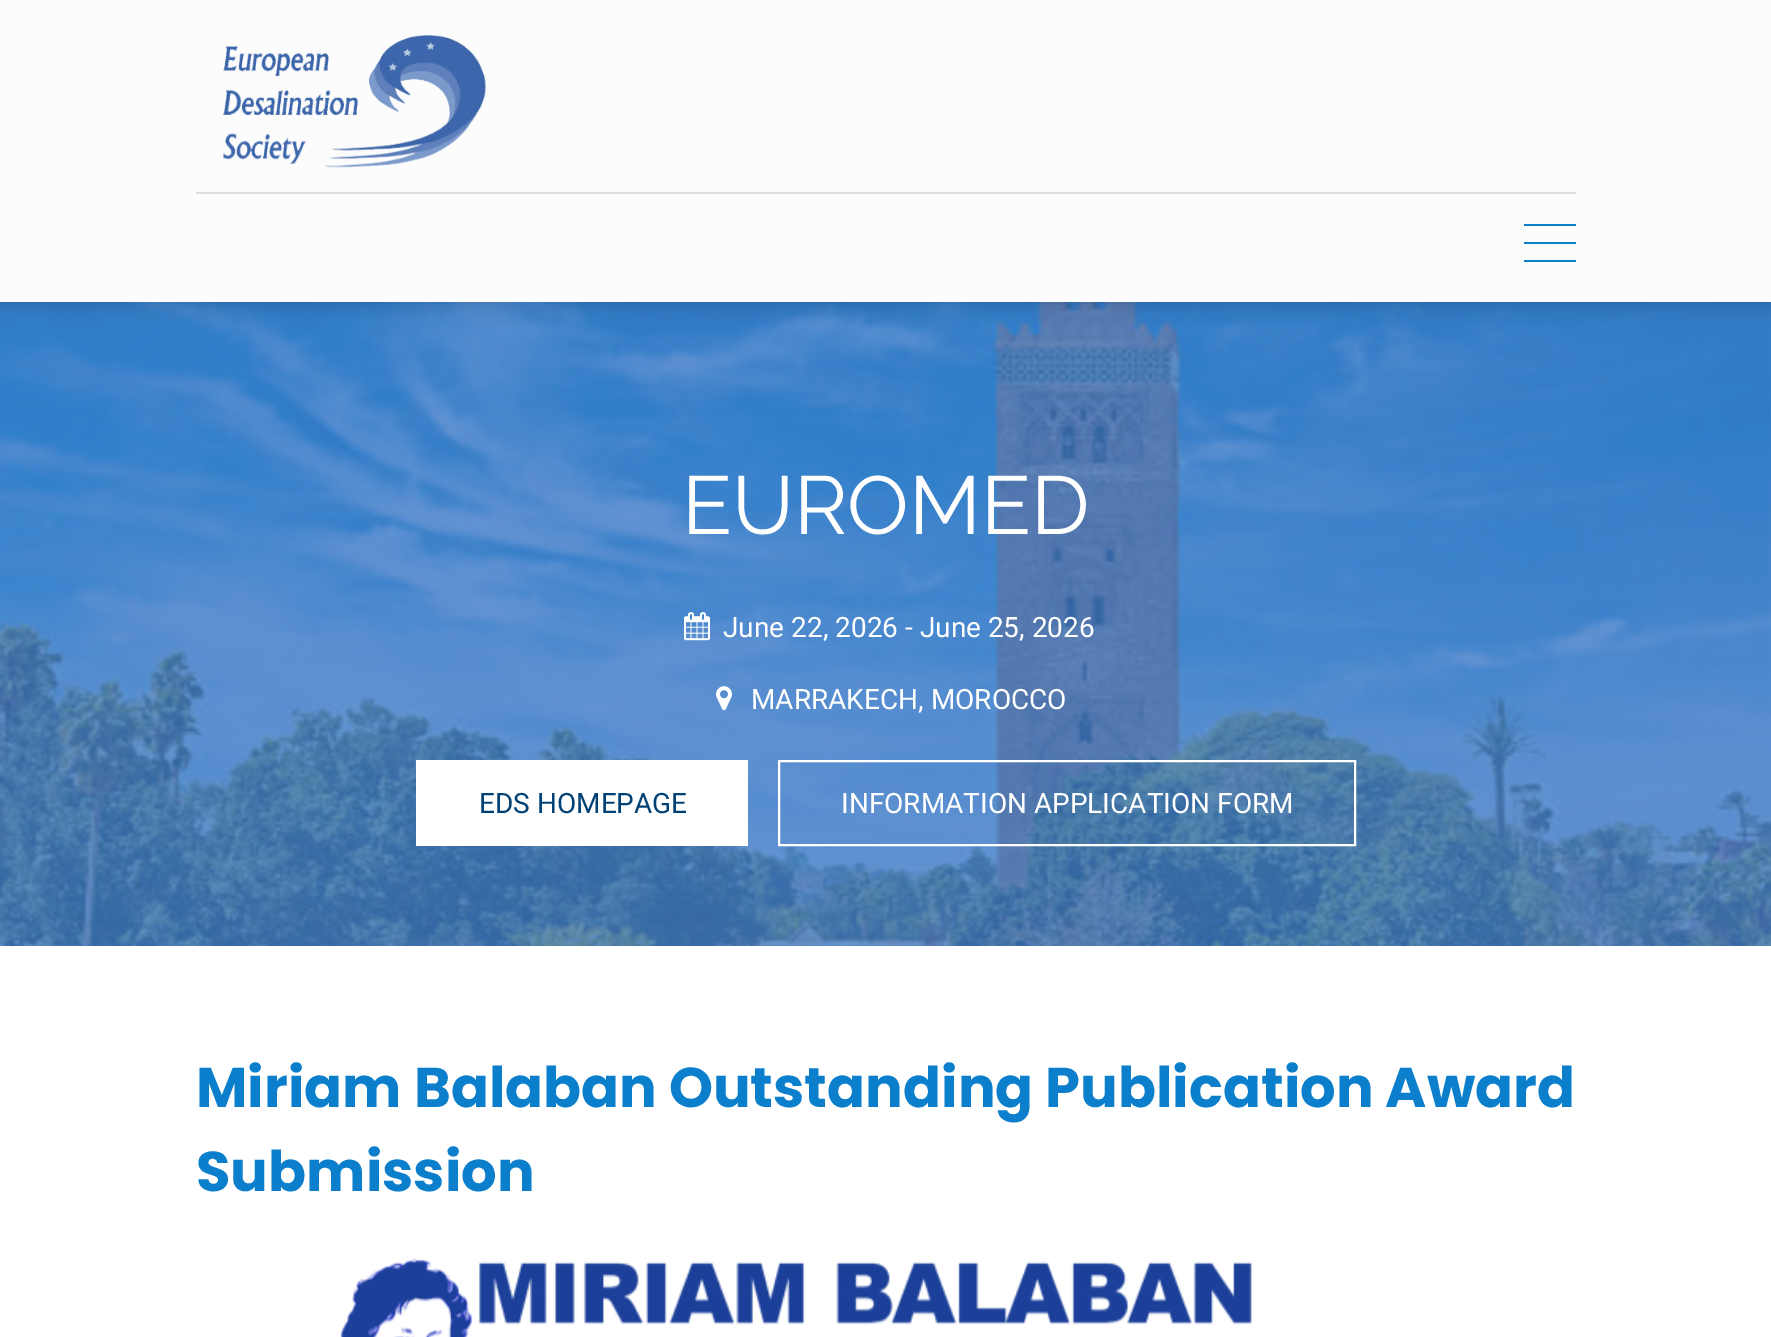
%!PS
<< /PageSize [1771 1337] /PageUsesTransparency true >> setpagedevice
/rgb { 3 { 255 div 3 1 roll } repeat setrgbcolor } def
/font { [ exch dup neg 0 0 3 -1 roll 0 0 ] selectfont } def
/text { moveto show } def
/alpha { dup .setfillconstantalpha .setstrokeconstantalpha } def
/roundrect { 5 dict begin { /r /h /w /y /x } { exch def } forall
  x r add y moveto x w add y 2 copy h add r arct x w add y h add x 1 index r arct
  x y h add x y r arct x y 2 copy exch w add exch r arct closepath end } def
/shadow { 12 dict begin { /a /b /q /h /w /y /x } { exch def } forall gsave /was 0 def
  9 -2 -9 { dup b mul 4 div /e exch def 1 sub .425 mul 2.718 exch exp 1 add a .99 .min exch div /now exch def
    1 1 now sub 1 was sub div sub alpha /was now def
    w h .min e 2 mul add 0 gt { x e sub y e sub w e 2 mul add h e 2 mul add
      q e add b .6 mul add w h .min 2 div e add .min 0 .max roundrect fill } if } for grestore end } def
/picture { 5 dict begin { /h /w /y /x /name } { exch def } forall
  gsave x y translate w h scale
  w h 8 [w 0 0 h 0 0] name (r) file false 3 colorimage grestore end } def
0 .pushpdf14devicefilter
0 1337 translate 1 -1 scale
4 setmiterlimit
255 255 255 rgb
0 0 1771 1337 rectfill
(img_02.rgb) 0 302 1771 644 picture
0 0 0 rgb
0 0 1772 302 0 10 0.2 shadow
252 252 252 rgb
0 0 1771 302 rectfill
221 221 221 rgb
196 192 1380 2 rectfill
(img_01.rgb) 223 34 263 134 picture
12 127 204 rgb
1524 224 52 2 rectfill
1524 242 52 2 rectfill
1524 260 52 2 rectfill
(img_03.rgb) 684 612 26 29 picture
(img_04.rgb) 716 686 16 25 picture
255 255 255 rgb
416 760 332 86 rectfill
2 setlinewidth
779 761 576 84 rectstroke
(img_05.rgb) 340 1257 912 80 picture
/Raleway-Regular 82 font
(EUROMED) 682 534 text
/Roboto-Regular 28 font
(June 22, 2026 - June 25, 2026) 723 637 text
(MARRAKECH, MOROCCO) 751 709 text
0 66 117 rgb
(EDS HOMEPAGE) 479 813 text
255 255 255 rgb
(INFORMATION APPLICATION FORM) 841 813 text
/Poppins-Bold 56 font
12 127 204 rgb
(Miriam Balaban Outstanding Publication Award) 196 1107 text
(Submission) 196 1191 text
.poppdf14devicefilter showpage
